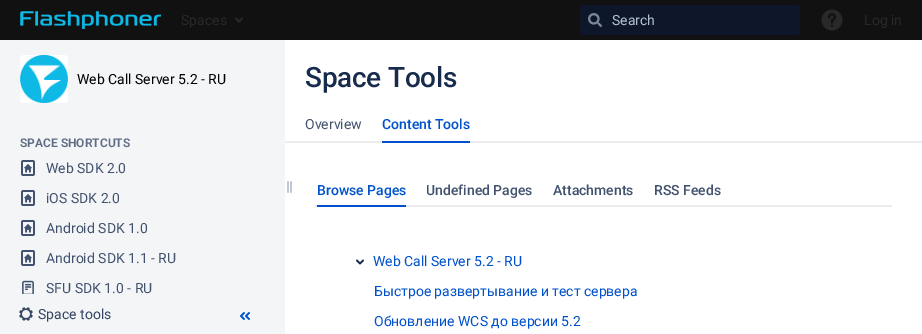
%!PS
<< /PageSize [922 334] >> setpagedevice
/rgb { 3 { 255 div 3 1 roll } repeat setrgbcolor } def
/font { [ exch dup neg 0 0 3 -1 roll 0 0 ] selectfont } def
/text { moveto show } def
/roundrect { 5 dict begin { /r /h /w /y /x } { exch def } forall
  x r add y moveto x w add y 2 copy h add r arct x w add y h add x 1 index r arct
  x y h add x y r arct x y 2 copy exch w add exch r arct closepath end } def
/picture { 5 dict begin { /h /w /y /x /name } { exch def } forall
  gsave x y translate w h scale
  w h 8 [w 0 0 h 0 0] name (r) file false 3 colorimage grestore end } def
0 334 translate 1 -1 scale
4 setmiterlimit
244 245 247 rgb
0 0 922 334 rectfill
17 17 17 rgb
0 0 922 40 rectfill
(img_01.rgb) 20 11 141 18 picture
(img_02.rgb) 235 17 8 6 picture
13 23 41 rgb
580 5 220 30 3 roundrect fill
(img_03.rgb) 588 13 14 14 picture
(img_04.rgb) 821 9 22 22 picture
255 255 255 rgb
20 55 48 48 3 roundrect fill
(img_05.rgb) 20 55 48 48 picture
(img_06.rgb) 21 160 14 16 picture
(img_06.rgb) 21 190 14 16 picture
(img_06.rgb) 21 220 14 16 picture
(img_06.rgb) 21 250 14 16 picture
(img_07.rgb) 22 280 12 14 picture
285 40 637 294 rectfill
(img_08.rgb) 287 181 5 12 picture
(img_09.rgb) 19 307 14 14 picture
(img_10.rgb) 240 312 10 8 picture
235 236 240 rgb
285 141 637 2 rectfill
0 82 204 rgb
382 141 88 2 rectfill
235 236 240 rgb
315 205 577 2 rectfill
0 82 204 rgb
317 205 89 2 rectfill
(img_11.rgb) 356 259 8 6 picture
/Roboto-Regular 14 font
41 41 41 rgb
(Spaces) 181 25 text
180 193 212 rgb
(Search) 612 25 text
41 41 41 rgb
(Log in) 864 25 text
0 0 0 rgb
(Web Call Server 5.2 - RU) 77 84 text
/Roboto-SemiBold 12 font
94 108 132 rgb
(SPACE SHORTCUTS) 20 147 text
/Roboto-Regular 14 font
66 82 110 rgb
(Web SDK 2.0) 46 173 text
(iOS SDK 2.0) 46 203 text
(Android SDK 1.0) 46 233 text
(Android SDK 1.1 - RU) 46 263 text
(SFU SDK 1.0 - RU) 46 293 text
52 69 99 rgb
(Space tools) 38 319 text
/Roboto-Medium 28 font
23 43 77 rgb
305 87 moveto -0.25 0 (Space Tools) ashow
/Roboto-Regular 14 font
66 82 110 rgb
(Overview) 305 129 text
/Roboto-Medium 14 font
0 82 204 rgb
(Content Tools) 382 129 text
(Browse Pages) 317 195 text
66 82 110 rgb
(Undefined Pages) 426 195 text
(Attachments) 553 195 text
(RSS Feeds) 654 195 text
/Roboto-Regular 14 font
0 82 204 rgb
(Web Call Server 5.2 - RU) 373 266 text
(Быстрое развертывание и тест сервера) 374 296 text
(Обновление WCS до версии 5.2) 374 326 text
showpage
